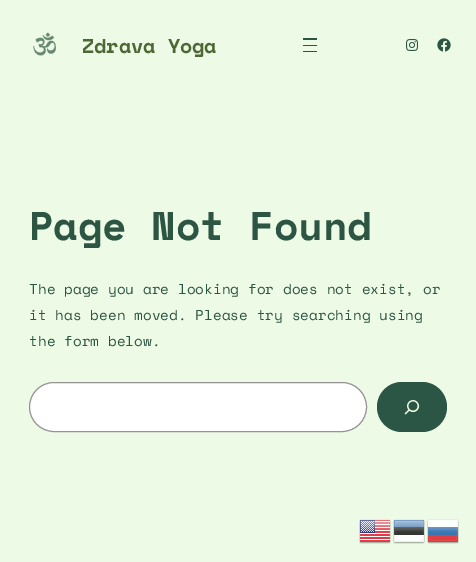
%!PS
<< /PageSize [476 562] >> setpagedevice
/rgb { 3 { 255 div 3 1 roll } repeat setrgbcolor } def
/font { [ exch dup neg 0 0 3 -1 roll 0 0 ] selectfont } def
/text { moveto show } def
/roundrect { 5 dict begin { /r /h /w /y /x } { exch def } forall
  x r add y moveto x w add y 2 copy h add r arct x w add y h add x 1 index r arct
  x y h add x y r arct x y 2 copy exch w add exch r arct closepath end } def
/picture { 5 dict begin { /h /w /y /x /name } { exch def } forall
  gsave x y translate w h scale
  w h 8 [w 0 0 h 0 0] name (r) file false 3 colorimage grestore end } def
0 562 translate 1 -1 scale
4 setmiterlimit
237 250 229 rgb
0 0 476 562 rectfill
(img_01.rgb) 33 32 23 24 picture
45 85 68 rgb
303 38 14 2 rectfill
303 45 14 1 rectfill
303 51 14 1 rectfill
(img_02.rgb) 406 39 12 12 picture
(img_03.rgb) 437 38 14 14 picture
255 255 255 rgb
29.5 382.5 337 49 24.5 roundrect gsave fill grestore
148 148 148 rgb
stroke
43 85 68 rgb
377 382 70 50 25 roundrect fill
(img_04.rgb) 404 400 16 15 picture
(img_05.rgb) 359 519 32 25 picture
(img_06.rgb) 393 519 32 25 picture
(img_07.rgb) 427 519 32 25 picture
/SpaceMono-Bold 20 font
77 104 53 rgb
(Zdrava Yoga) 82 53 text
/SpaceMono-Bold 40 font
45 85 68 rgb
(Page Not Found) 29 240 text
/SpaceMono-Regular 14.3 font
(The page you are looking for does not exist, or) 29 294 text
(it has been moved. Please try searching using) 29 320 text
(the form below.) 29 346 text
showpage
